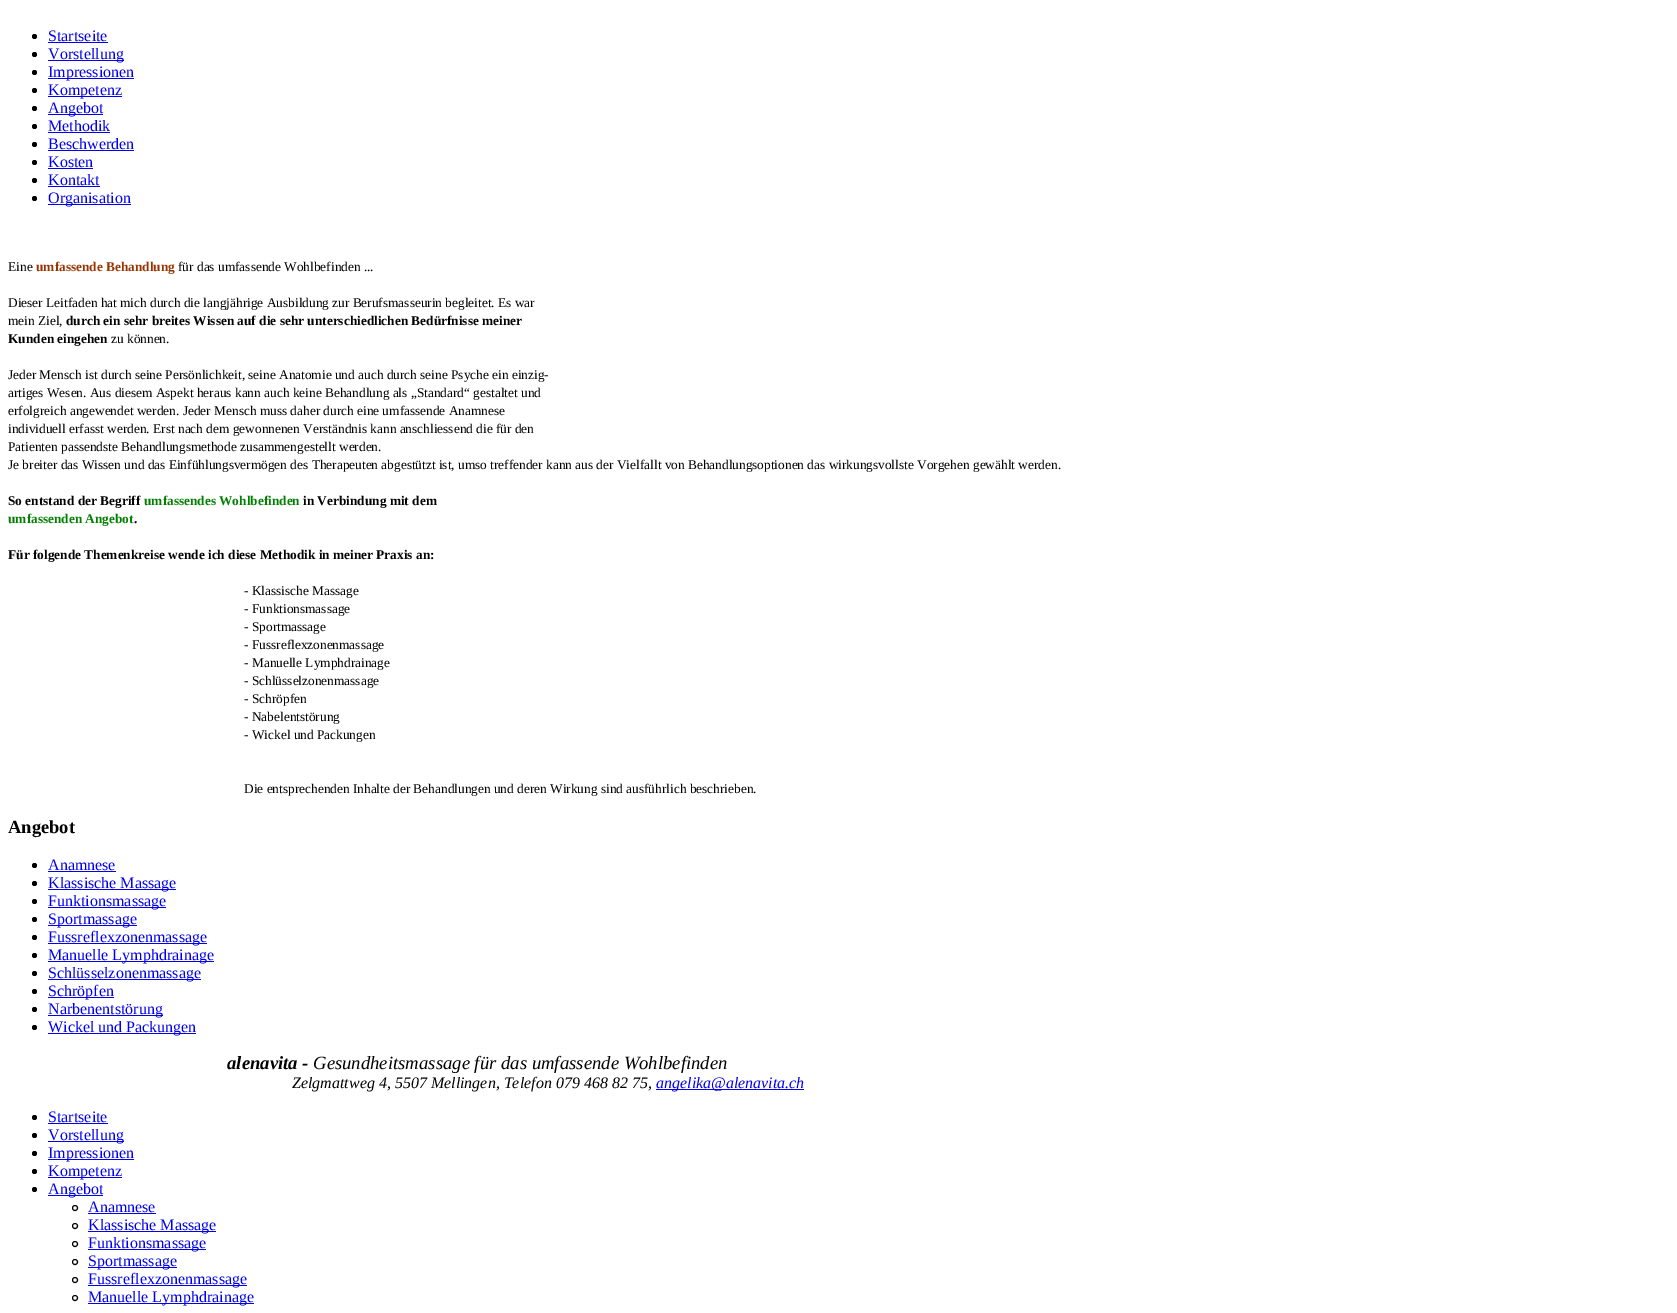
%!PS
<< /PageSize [1677 1313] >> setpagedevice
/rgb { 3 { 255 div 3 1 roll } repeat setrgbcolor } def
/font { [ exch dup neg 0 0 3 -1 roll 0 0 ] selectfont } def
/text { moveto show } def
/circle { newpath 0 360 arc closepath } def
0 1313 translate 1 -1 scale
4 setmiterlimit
255 255 255 rgb
0 0 1677 1313 rectfill
0 0 0 rgb
34.5 36.5 2.5 circle fill
0 0 238 rgb
48 42 60 1 rectfill
0 0 0 rgb
34.5 54.5 2.5 circle fill
0 0 238 rgb
48 60 76 1 rectfill
0 0 0 rgb
34.5 72.5 2.5 circle fill
0 0 238 rgb
48 78 86 1 rectfill
0 0 0 rgb
34.5 90.5 2.5 circle fill
0 0 238 rgb
48 96 74 1 rectfill
0 0 0 rgb
34.5 108.5 2.5 circle fill
0 0 238 rgb
48 114 55 1 rectfill
0 0 0 rgb
34.5 126.5 2.5 circle fill
0 0 238 rgb
48 132 62 1 rectfill
0 0 0 rgb
34.5 144.5 2.5 circle fill
0 0 238 rgb
48 150 86 1 rectfill
0 0 0 rgb
34.5 162.5 2.5 circle fill
0 0 238 rgb
48 168 45 1 rectfill
0 0 0 rgb
34.5 180.5 2.5 circle fill
0 0 238 rgb
48 186 52 1 rectfill
0 0 0 rgb
34.5 198.5 2.5 circle fill
0 0 238 rgb
48 204 83 1 rectfill
0 0 0 rgb
34.5 865.5 2.5 circle fill
0 0 238 rgb
48 871 68 1 rectfill
0 0 0 rgb
34.5 883.5 2.5 circle fill
0 0 238 rgb
48 889 128 1 rectfill
0 0 0 rgb
34.5 901.5 2.5 circle fill
0 0 238 rgb
48 907 118 1 rectfill
0 0 0 rgb
34.5 919.5 2.5 circle fill
0 0 238 rgb
48 925 89 1 rectfill
0 0 0 rgb
34.5 937.5 2.5 circle fill
0 0 238 rgb
48 943 159 1 rectfill
0 0 0 rgb
34.5 955.5 2.5 circle fill
0 0 238 rgb
48 961 166 1 rectfill
0 0 0 rgb
34.5 973.5 2.5 circle fill
0 0 238 rgb
48 979 153 1 rectfill
0 0 0 rgb
34.5 991.5 2.5 circle fill
0 0 238 rgb
48 997 66 1 rectfill
0 0 0 rgb
34.5 1009.5 2.5 circle fill
0 0 238 rgb
48 1015 115 1 rectfill
0 0 0 rgb
34.5 1027.5 2.5 circle fill
0 0 238 rgb
48 1033 148 1 rectfill
656 1089 148 1 rectfill
0 0 0 rgb
34.5 1117.5 2.5 circle fill
0 0 238 rgb
48 1123 60 1 rectfill
0 0 0 rgb
34.5 1135.5 2.5 circle fill
0 0 238 rgb
48 1141 76 1 rectfill
0 0 0 rgb
34.5 1153.5 2.5 circle fill
0 0 238 rgb
48 1159 86 1 rectfill
0 0 0 rgb
34.5 1171.5 2.5 circle fill
0 0 238 rgb
48 1177 74 1 rectfill
0 0 0 rgb
34.5 1189.5 2.5 circle fill
0 0 238 rgb
48 1195 55 1 rectfill
0 0 0 rgb
75 1208 2.5 circle stroke
0 0 238 rgb
88 1213 68 1 rectfill
0 0 0 rgb
75 1226 2.5 circle stroke
0 0 238 rgb
88 1231 128 1 rectfill
0 0 0 rgb
75 1244 2.5 circle stroke
0 0 238 rgb
88 1249 118 1 rectfill
0 0 0 rgb
75 1262 2.5 circle stroke
0 0 238 rgb
88 1267 89 1 rectfill
0 0 0 rgb
75 1280 2.5 circle stroke
0 0 238 rgb
88 1285 159 1 rectfill
0 0 0 rgb
75 1298 2.5 circle stroke
0 0 238 rgb
88 1303 166 1 rectfill
/LiberationSerif-Regular 16 font
(Startseite) 48 41 text
(Vorstellung) 48 59 text
(Impressionen) 48 77 text
(Kompetenz) 48 95 text
(Angebot) 48 113 text
(Methodik) 48 131 text
(Beschwerden) 48 149 text
(Kosten) 48 167 text
(Kontakt) 48 185 text
(Organisation) 48 203 text
/LiberationSerif-Regular 13.33 font
0 0 0 rgb
(Eine) 8 271 text
/LiberationSerif-Bold 13.33 font
153 51 0 rgb
(umfassende Behandlung) 36 271 text
/LiberationSerif-Regular 13.33 font
0 0 0 rgb
(für das umfassende Wohlbefinden ...) 178 271 text
(Dieser Leitfaden hat mich durch die langjährige Ausbildung zur Berufsmasseurin begleitet. Es war) 8 307 text
(mein Ziel,) 8 325 text
/LiberationSerif-Bold 13.33 font
(durch ein sehr breites Wissen auf die sehr unterschiedlichen Bedürfnisse meiner) 66 325 text
(Kunden eingehen) 8 343 text
/LiberationSerif-Regular 13.33 font
(zu können.) 111 343 text
(Jeder Mensch ist durch seine Persönlichkeit, seine Anatomie und auch durch seine Psyche ein einzig-) 8 379 text
(artiges Wesen. Aus diesem Aspekt heraus kann auch keine Behandlung als „Standard“ gestaltet und) 8 397 text
(erfolgreich angewendet werden. Jeder Mensch muss daher durch eine umfassende Anamnese) 8 415 text
(individuell erfasst werden. Erst nach dem gewonnenen Verständnis kann anschliessend die für den) 8 433 text
(Patienten passendste Behandlungsmethode zusammengestellt werden.) 8 451 text
(Je breiter das Wissen und das Einfühlungsvermögen des Therapeuten abgestützt ist, umso treffender kann aus der Vielfallt von Behandlungsoptionen das wirkungsvollste Vorgehen gewählt werden.) 8 469 text
/LiberationSerif-Bold 13.33 font
(So entstand der Begriff) 8 505 text
0 128 0 rgb
(umfassendes Wohlbefinden) 144 505 text
0 0 0 rgb
(in Verbindung mit dem) 303 505 text
0 128 0 rgb
(umfassenden Angebot) 8 523 text
0 0 0 rgb
(.) 134 523 text
(Für folgende Themenkreise wende ich diese Methodik in meiner Praxis an:) 8 559 text
/LiberationSerif-Regular 13.33 font
(- Klassische Massage) 244 595 text
(- Funktionsmassage) 244 613 text
(- Sportmassage) 244 631 text
(- Fussreflexzonenmassage) 244 649 text
(- Manuelle Lymphdrainage) 244 667 text
(- Schlüsselzonenmassage) 244 685 text
(- Schröpfen) 244 703 text
(- Nabelentstörung) 244 721 text
(- Wickel und Packungen) 244 739 text
(Die entsprechenden Inhalte der Behandlungen und deren Wirkung sind ausführlich beschrieben.) 244 793 text
/LiberationSerif-Bold 18.5 font
(Angebot) 8 833 text
/LiberationSerif-Regular 16 font
0 0 238 rgb
(Anamnese) 48 870 text
(Klassische Massage) 48 888 text
(Funktionsmassage) 48 906 text
(Sportmassage) 48 924 text
(Fussreflexzonenmassage) 48 942 text
(Manuelle Lymphdrainage) 48 960 text
(Schlüsselzonenmassage) 48 978 text
(Schröpfen) 48 996 text
(Narbenentstörung) 48 1014 text
(Wickel und Packungen) 48 1032 text
/LiberationSerif-BoldItalic 18.7 font
0 0 0 rgb
(alenavita -) 227 1069 text
/LiberationSerif-Italic 18.7 font
(Gesundheitsmassage für das umfassende Wohlbefinden) 313 1069 text
/LiberationSerif-Italic 16 font
(Zelgmattweg 4, 5507 Mellingen, Telefon 079 468 82 75,) 292 1088 text
0 0 238 rgb
(angelika@alenavita.ch) 656 1088 text
/LiberationSerif-Regular 16 font
(Startseite) 48 1122 text
(Vorstellung) 48 1140 text
(Impressionen) 48 1158 text
(Kompetenz) 48 1176 text
(Angebot) 48 1194 text
(Anamnese) 88 1212 text
(Klassische Massage) 88 1230 text
(Funktionsmassage) 88 1248 text
(Sportmassage) 88 1266 text
(Fussreflexzonenmassage) 88 1284 text
(Manuelle Lymphdrainage) 88 1302 text
showpage
